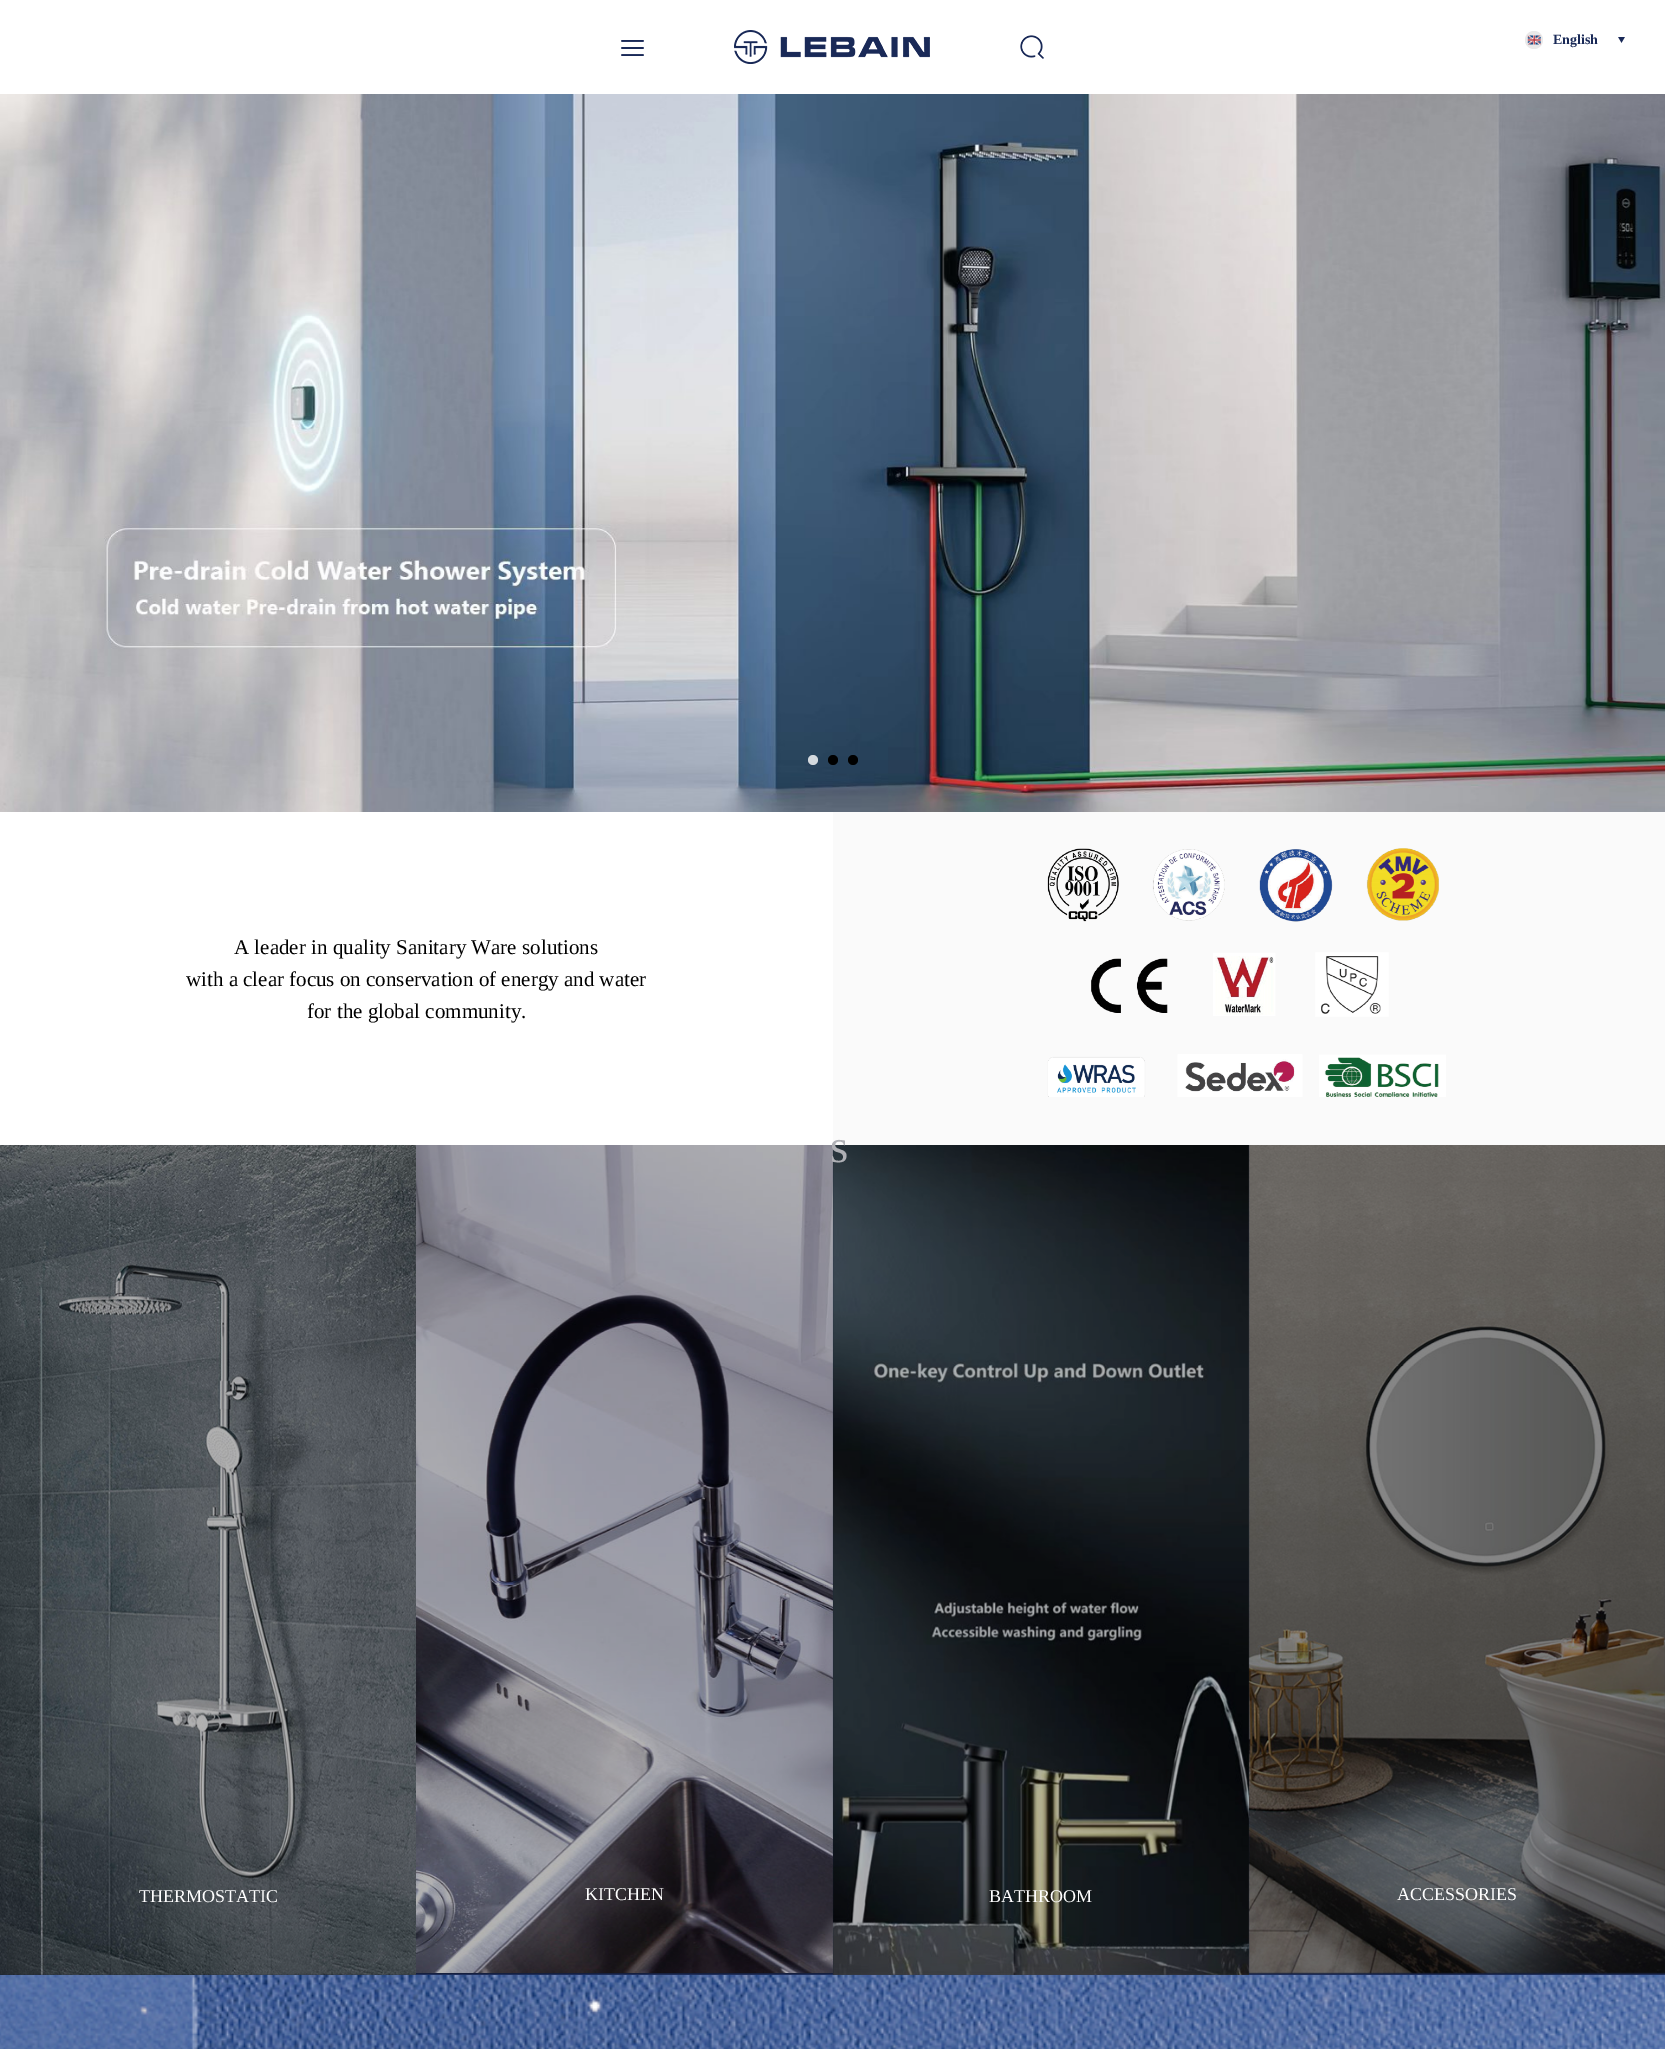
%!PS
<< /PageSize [1665 2049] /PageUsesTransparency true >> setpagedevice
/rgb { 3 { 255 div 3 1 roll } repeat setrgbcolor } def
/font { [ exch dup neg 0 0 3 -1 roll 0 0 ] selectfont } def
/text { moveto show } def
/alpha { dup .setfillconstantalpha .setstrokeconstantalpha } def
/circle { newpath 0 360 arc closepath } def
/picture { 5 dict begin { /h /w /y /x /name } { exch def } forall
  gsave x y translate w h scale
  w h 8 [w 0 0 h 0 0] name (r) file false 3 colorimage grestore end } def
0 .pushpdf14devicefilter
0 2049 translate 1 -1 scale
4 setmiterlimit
255 255 255 rgb
0 0 1665 2049 rectfill
(img_01.rgb) 621 40 23 16 picture
(img_02.rgb) 734 30 196 34 picture
(img_03.rgb) 1020 35 24 24 picture
234 233 233 rgb
1534 40 9 circle fill
(img_04.rgb) 1527 35 14 10 picture
(img_05.rgb) 1618 37 7 6 picture
(img_06.rgb) 0 94 1665 718 picture
0.8 alpha
255 255 255 rgb
813 760 5 circle fill
1 alpha
0 0 0 rgb
833 760 5 circle fill
853 760 5 circle fill
250 250 250 rgb
833 812 832 333 rectfill
(img_07.rgb) 1047 848 399 249 picture
30 45 88 rgb
0 1145 1665 830 rectfill
21 31 62 rgb
1249 1145 416 829 rectfill
416 1145 417 829 rectfill
(img_08.rgb) 0 1145 416 830 picture
(img_09.rgb) 416 1145 417 828 picture
(img_10.rgb) 832 1145 417 830 picture
(img_11.rgb) 1248 1145 417 829 picture
(img_12.rgb) 0 1975 1665 74 picture
/LiberationSerif-Bold 14 font
25 41 87 rgb
(English) 1553 44 text
/LiberationSerif-Regular 21 font
0 0 0 rgb
(A leader in quality Sanitary Ware solutions) 234 954 text
(with a clear focus on conservation of energy and water) 186 986 text
(for the global community.) 307 1018 text
/LiberationSerif-Regular 47 font
175 176 181 rgb
(s) 830 1162 text
/LiberationSerif-Regular 18 font
255 255 255 rgb
(THERMOSTATIC) 139 1902 text
(KITCHEN) 585 1900 text
(BATHROOM) 989 1902 text
(ACCESSORIES) 1397 1900 text
.poppdf14devicefilter showpage
